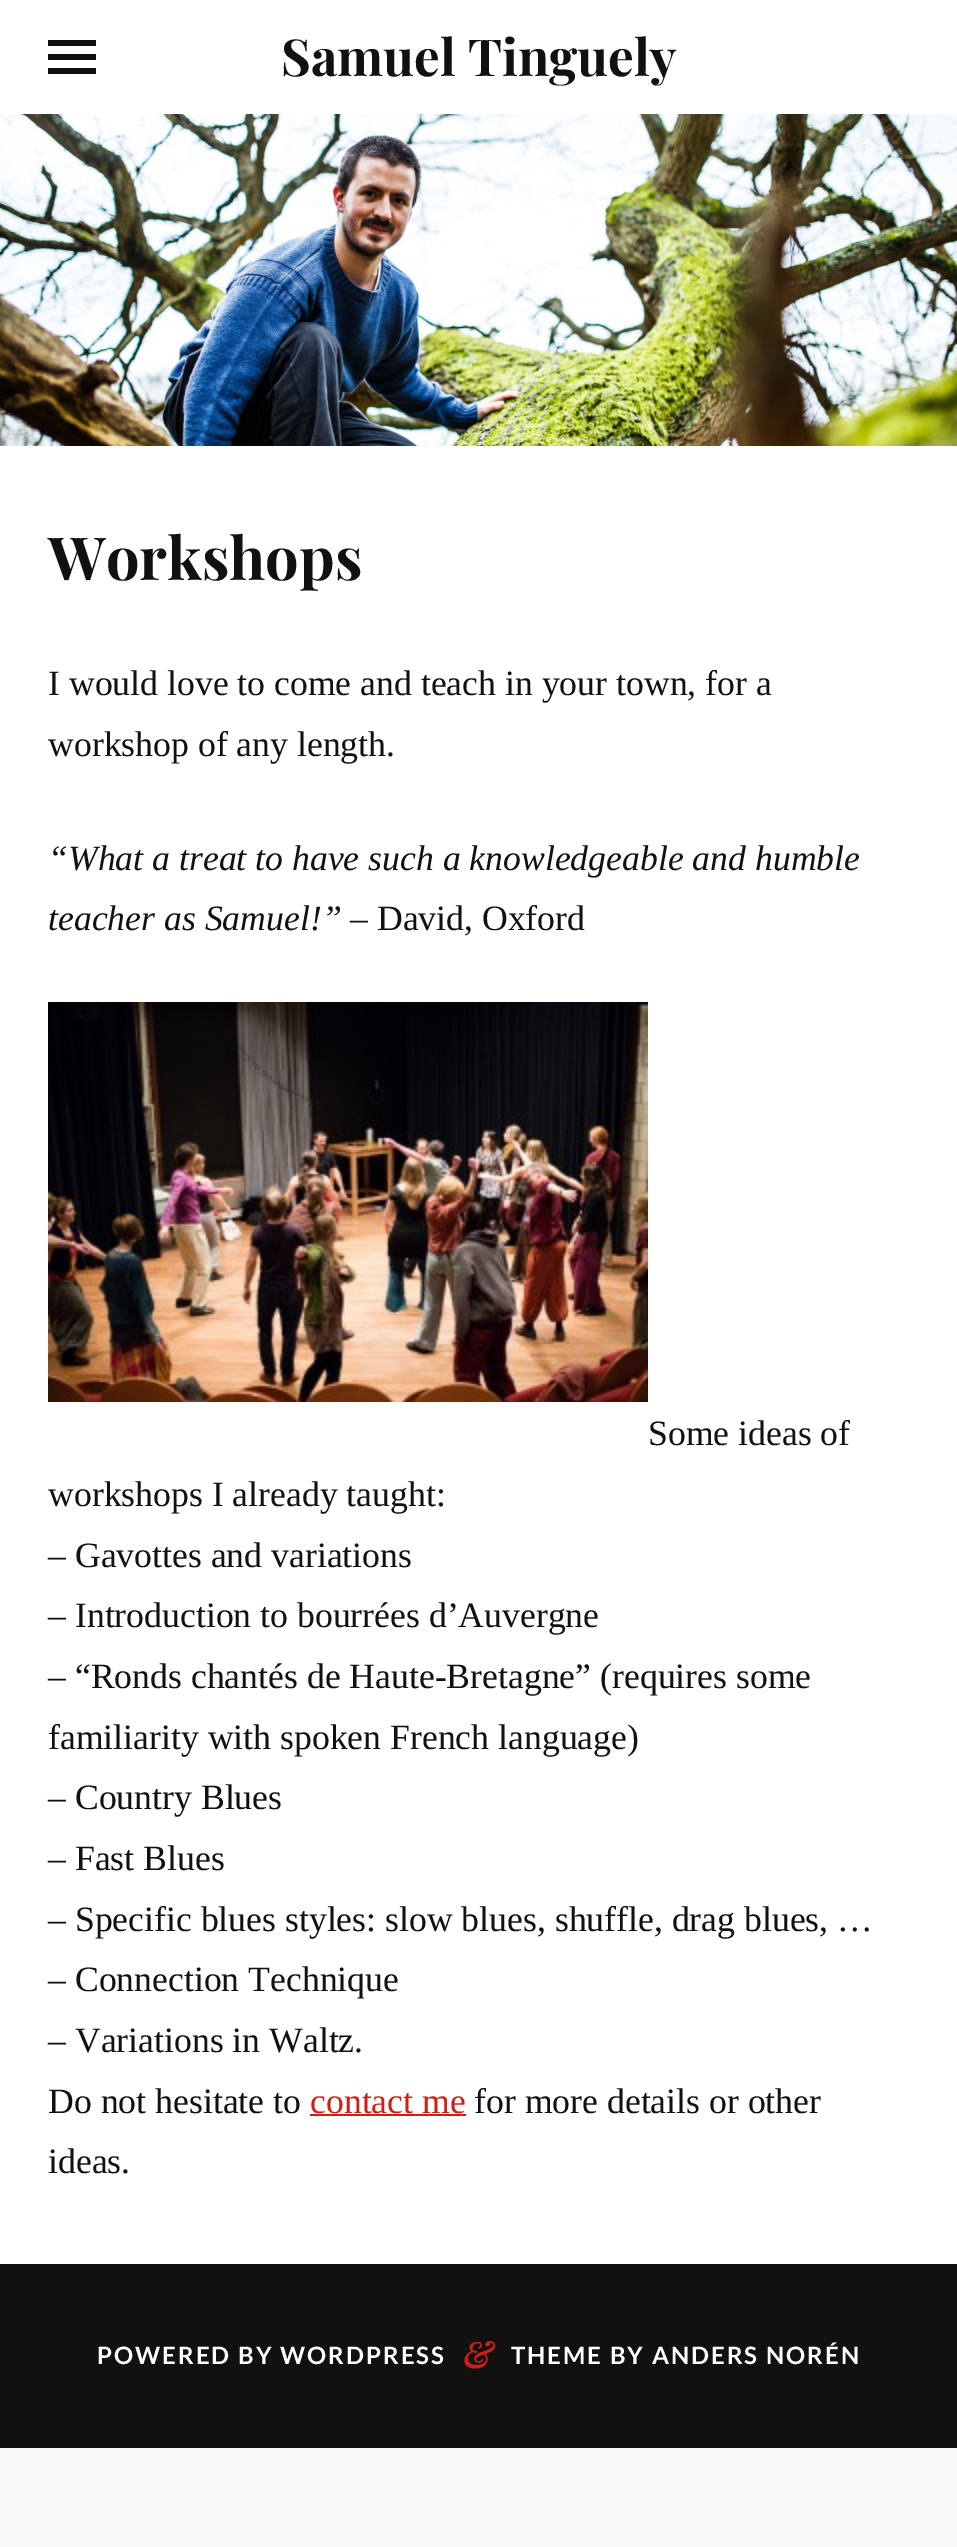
%!PS
<< /PageSize [957 2547] >> setpagedevice
/rgb { 3 { 255 div 3 1 roll } repeat setrgbcolor } def
/font { [ exch dup neg 0 0 3 -1 roll 0 0 ] selectfont } def
/text { moveto show } def
/picture { 5 dict begin { /h /w /y /x /name } { exch def } forall
  gsave x y translate w h scale
  w h 8 [w 0 0 h 0 0] name (r) file false 3 colorimage grestore end } def
0 2547 translate 1 -1 scale
4 setmiterlimit
250 250 250 rgb
0 0 957 2547 rectfill
255 255 255 rgb
0 0 957 114 rectfill
17 17 17 rgb
48 40 48 6 rectfill
48 54 48 6 rectfill
48 68 48 6 rectfill
(img_01.rgb) 0 114 957 332 picture
255 255 255 rgb
0 446 957 1818 rectfill
(img_02.rgb) 48 1002 600 400 picture
202 32 23 rgb
310 2114 156 2 rectfill
17 17 17 rgb
0 2264 957 184 rectfill
/PlayfairDisplay-Bold 51 font
(Samuel Tinguely) 281 76 text
/PlayfairDisplay-Bold 59.5 font
(Workshops) 48 580 text
/LiberationSerif-Regular 35.7 font
(I would love to come and teach in your town, for a) 48 695 text
(workshop of any length.) 48 756 text
/LiberationSerif-Italic 35.7 font
(“What a treat to have such a knowledgeable and humble) 48 870 text
(teacher as Samuel!”) 48 930 text
/LiberationSerif-Regular 35.7 font
(– David, Oxford) 350 930 text
(Some ideas of) 648 1445 text
(workshops I already taught:) 48 1506 text
(– Gavottes and variations) 48 1567 text
(– Introduction to bourrées d’Auvergne) 48 1627 text
(– “Ronds chantés de Haute-Bretagne” \(requires some) 48 1688 text
(familiarity with spoken French language\)) 48 1749 text
(– Country Blues) 48 1809 text
(– Fast Blues) 48 1870 text
(– Specific blues styles: slow blues, shuffle, drag blues, …) 48 1931 text
(– Connection Technique) 48 1991 text
(– Variations in Waltz.) 48 2052 text
(Do not hesitate to) 48 2113 text
202 32 23 rgb
(contact me) 310 2113 text
17 17 17 rgb
(for more details or other) 474 2113 text
(ideas.) 48 2173 text
/Lato-Bold 24 font
255 255 255 rgb
97 2364 moveto 2 0 (POWERED BY WORDPRESS) ashow
/PlayfairDisplay-BoldItalic 36 font
202 32 23 rgb
463 2368 moveto 2 0 (&) ashow
/Lato-Bold 24 font
255 255 255 rgb
511 2364 moveto 2 0 (THEME BY ANDERS NORÉN) ashow
showpage
